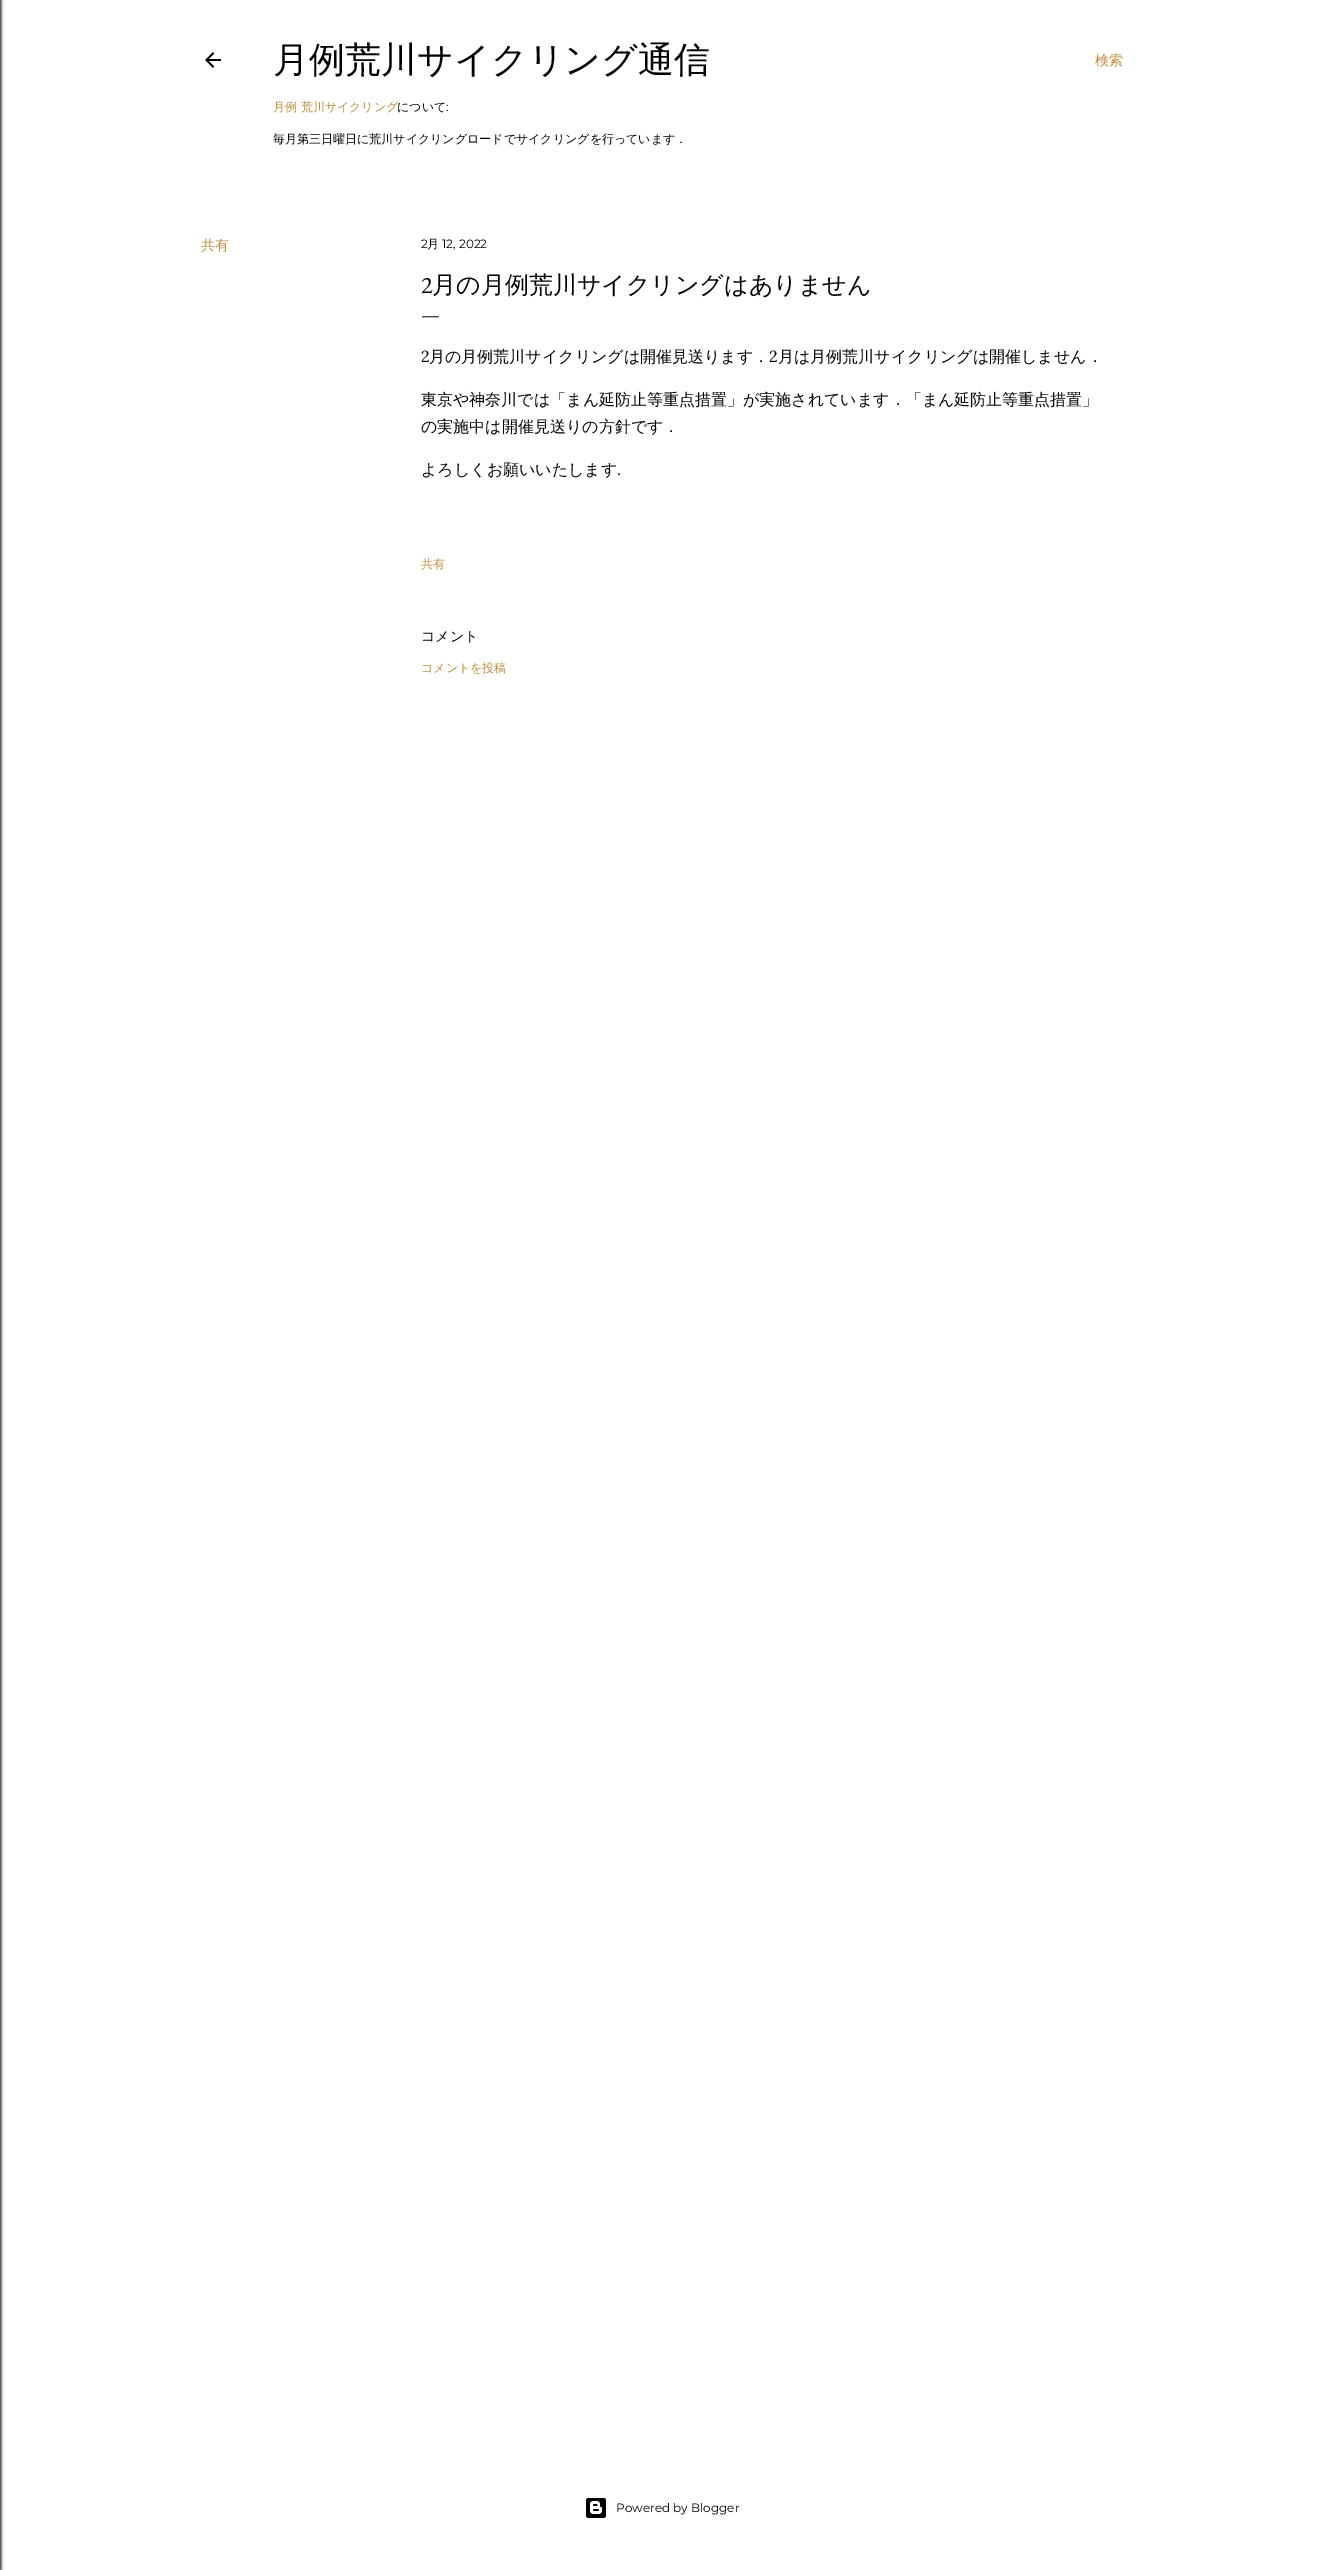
%!PS
<< /PageSize [1323 2570] /PageUsesTransparency true >> setpagedevice
/rgb { 3 { 255 div 3 1 roll } repeat setrgbcolor } def
/font { [ exch dup neg 0 0 3 -1 roll 0 0 ] selectfont } def
/text { moveto show } def
/alpha { dup .setfillconstantalpha .setstrokeconstantalpha } def
/roundrect { 5 dict begin { /r /h /w /y /x } { exch def } forall
  x r add y moveto x w add y 2 copy h add r arct x w add y h add x 1 index r arct
  x y h add x y r arct x y 2 copy exch w add exch r arct closepath end } def
/shadow { 12 dict begin { /a /b /q /h /w /y /x } { exch def } forall gsave /was 0 def
  9 -2 -9 { dup b mul 4 div /e exch def 1 sub .425 mul 2.718 exch exp 1 add a .99 .min exch div /now exch def
    1 1 now sub 1 was sub div sub alpha /was now def
    w h .min e 2 mul add 0 gt { x e sub y e sub w e 2 mul add h e 2 mul add
      q e add b .6 mul add w h .min 2 div e add .min 0 .max roundrect fill } if } for grestore end } def
/picture { 5 dict begin { /h /w /y /x /name } { exch def } forall
  gsave x y translate w h scale
  w h 8 [w 0 0 h 0 0] name (r) file false 3 colorimage grestore end } def
0 .pushpdf14devicefilter
0 2570 translate 1 -1 scale
4 setmiterlimit
255 255 255 rgb
0 0 1323 2570 rectfill
0 0 0 rgb
-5 0 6 2570 0 1.5 1 shadow
(img_01.rgb) 205 52 16 16 picture
(img_02.rgb) 586 2498 20 20 picture
/WenQuanYiZenHei-Medium 36 font
(月例荒川サイクリング通信) 273 72 text
/WenQuanYiZenHei-Medium 12 font
191 139 56 rgb
(月例 荒川サイクリング) 273 111 text
0 0 0 rgb
(について) 397 111 text
/Montserrat-Regular 12 font
(:) 446 111 text
/WenQuanYiZenHei-Medium 12 font
(毎月第三日曜日に荒川サイクリングロードでサイクリングを行っています．) 273 143 text
/WenQuanYiZenHei-Medium 14 font
191 139 56 rgb
(検索) 1095 65 text
(共有) 201 250 text
/Montserrat-Regular 12 font
0 0 0 rgb
(2) 421 248 text
/WenQuanYiZenHei-Medium 12 font
(月) 427 248 text
/Montserrat-Regular 12 font
(12, 2022) 442 248 text
/EBGaramond-Regular 24 font
(2) 421 293 text
/WenQuanYiZenHei-Medium 24 font
(月の月例荒川サイクリングはありません) 432 293 text
/EBGaramond-Regular 20 font
(—) 421 321 text
/Lora-Regular 16 font
(2) 421 362 text
/WenQuanYiZenHei-Medium 16 font
(月の月例荒川サイクリングは開催見送ります．) 429 362 text
/Lora-Regular 16 font
(2) 769 362 text
/WenQuanYiZenHei-Medium 16 font
(月は月例荒川サイクリングは開催しません．) 778 362 text
(東京や神奈川では「まん延防止等重点措置」が実施されています．「まん延防止等重点措置」) 421 405 text
(の実施中は開催見送りの方針です．) 421 432 text
(よろしくお願いいたします) 421 475 text
/Lora-Regular 16 font
(.) 617 475 text
/WenQuanYiZenHei-Medium 12 font
191 139 56 rgb
(共有) 421 568 text
/WenQuanYiZenHei-Medium 14 font
0 0 0 rgb
(コメント) 421 641 text
/WenQuanYiZenHei-Medium 12 font
191 139 56 rgb
(コメントを投稿) 421 672 text
/Montserrat-Regular 12 font
0 0 0 rgb
(Powered by Blogger) 616 2512 text
.poppdf14devicefilter showpage
